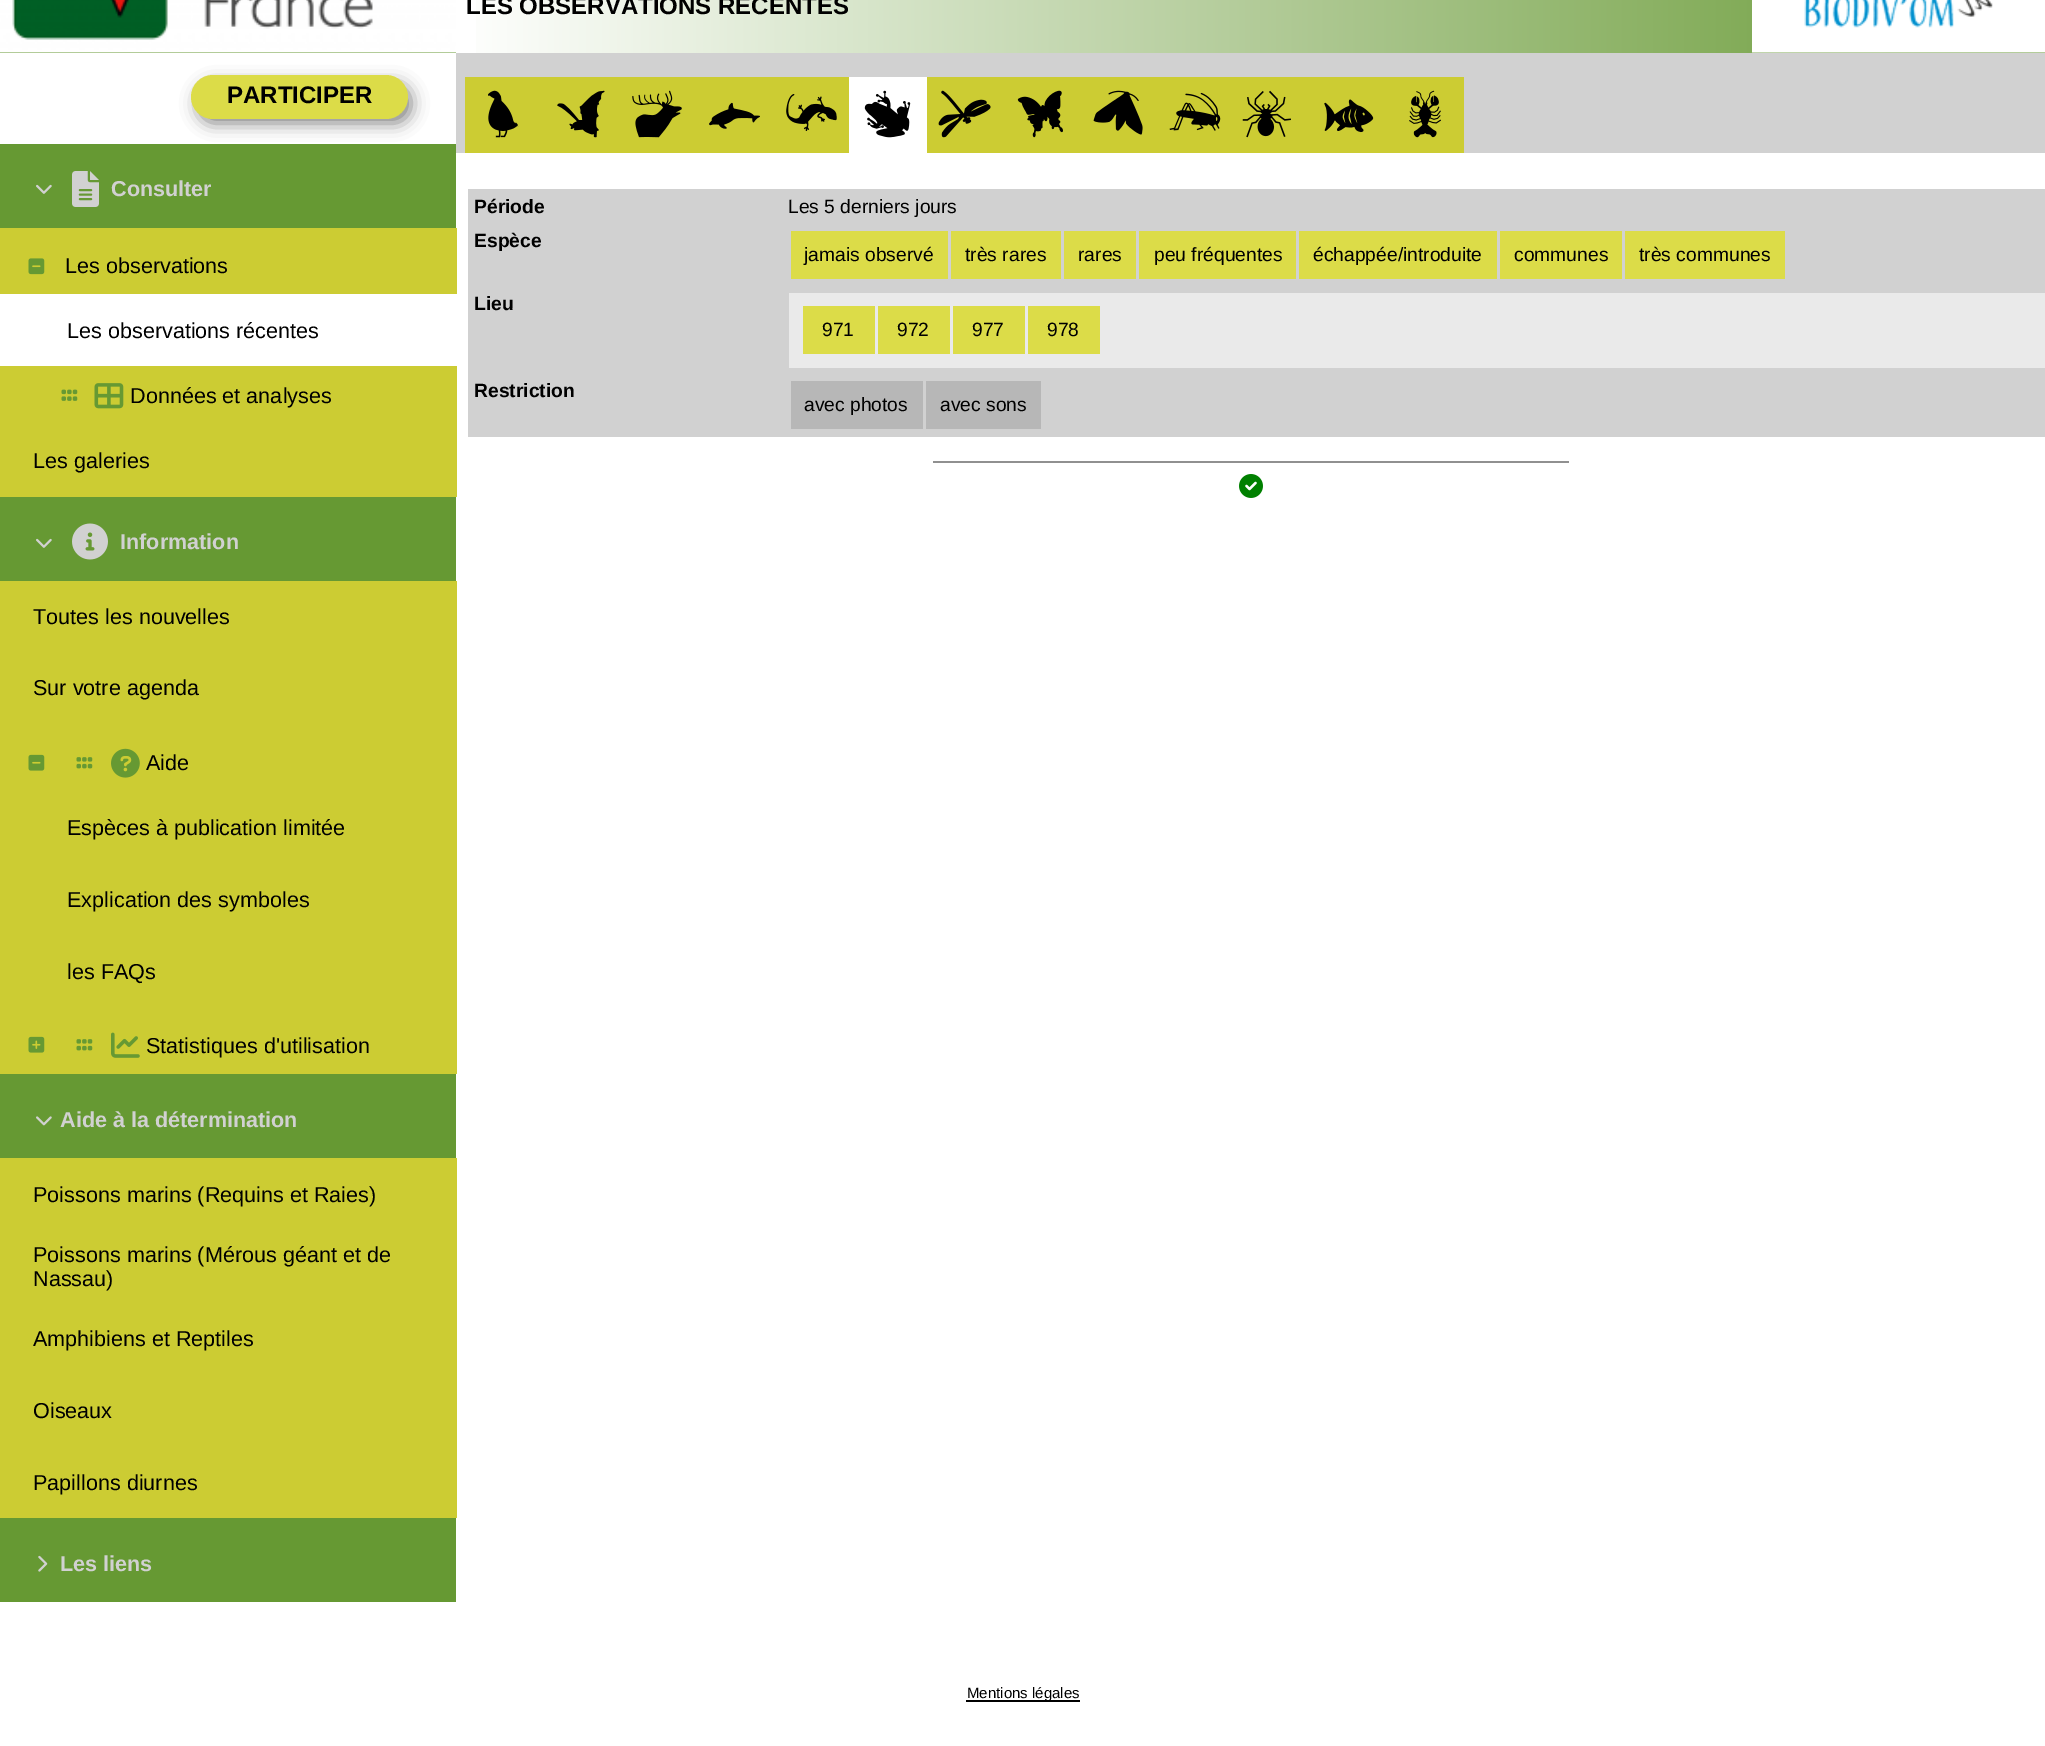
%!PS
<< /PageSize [2045 1746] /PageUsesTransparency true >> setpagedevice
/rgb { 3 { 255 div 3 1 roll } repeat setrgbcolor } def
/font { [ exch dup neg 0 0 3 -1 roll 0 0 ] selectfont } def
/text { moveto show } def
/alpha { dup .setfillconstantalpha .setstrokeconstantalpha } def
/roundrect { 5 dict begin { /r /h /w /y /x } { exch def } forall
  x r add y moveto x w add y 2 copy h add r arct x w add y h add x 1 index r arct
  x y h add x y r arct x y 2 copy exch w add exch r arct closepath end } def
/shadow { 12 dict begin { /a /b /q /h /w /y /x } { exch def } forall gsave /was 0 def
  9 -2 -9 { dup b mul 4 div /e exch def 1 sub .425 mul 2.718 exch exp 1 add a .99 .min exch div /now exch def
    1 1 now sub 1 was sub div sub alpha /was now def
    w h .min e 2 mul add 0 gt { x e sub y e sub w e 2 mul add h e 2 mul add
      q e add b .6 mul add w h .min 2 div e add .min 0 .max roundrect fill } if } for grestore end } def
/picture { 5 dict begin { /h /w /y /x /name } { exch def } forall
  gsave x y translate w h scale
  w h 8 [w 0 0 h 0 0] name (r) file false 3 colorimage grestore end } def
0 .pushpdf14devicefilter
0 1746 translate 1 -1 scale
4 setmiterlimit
255 255 255 rgb
0 0 2045 1746 rectfill
102 153 51 rgb
0 52 456 1550 rectfill
(img_01.rgb) 0 0 456 53 picture
gsave 476 0 moveto 1569 0 rlineto 0 53 rlineto -1569 0 rlineto closepath clip newpath
<< /ShadingType 2 /ColorSpace /DeviceRGB /Coords [456 6.8 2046 6.7] /Extend [true true] /Function << /FunctionType 2 /Domain [0 1] /C0 [1 1 1] /C1 [0.4 0.6 0.2] /N 1 >> >> shfill grestore
(img_02.rgb) 1752 0 293 53 picture
255 255 255 rgb
0 53 456 91 rectfill
0 0 0 rgb
198 84 213 39 19.5 8.5 0.5 shadow
220 220 72 rgb
191 75 217 44 22 roundrect fill
(img_03.rgb) 36 184 16 10 picture
(img_04.rgb) 72 171 27 36 picture
204 204 51 rgb
0 228 457 66 rectfill
(img_05.rgb) 28 258 17 17 picture
255 255 255 rgb
0 294 456 72 rectfill
204 204 51 rgb
0 366 457 59 rectfill
(img_06.rgb) 61 389 17 12 picture
(img_07.rgb) 94 383 30 26 picture
0 425 457 72 rectfill
(img_03.rgb) 36 538 16 10 picture
(img_08.rgb) 72 523 36 37 picture
0 581 457 72 rectfill
0 653 457 72 rectfill
0 725 457 66 rectfill
(img_09.rgb) 28 754 17 17 picture
(img_10.rgb) 76 757 17 12 picture
(img_11.rgb) 111 748 29 30 picture
0 791 457 72 rectfill
0 863 457 72 rectfill
0 935 457 72 rectfill
0 1007 457 67 rectfill
(img_12.rgb) 28 1036 17 17 picture
(img_10.rgb) 76 1039 17 12 picture
(img_13.rgb) 111 1032 29 26 picture
(img_14.rgb) 36 1116 16 10 picture
0 1158 457 72 rectfill
0 1230 457 72 rectfill
0 1302 457 72 rectfill
0 1374 457 72 rectfill
0 1446 457 72 rectfill
(img_15.rgb) 38 1555 10 17 picture
209 209 209 rgb
456 53 1589 100 rectfill
204 204 51 rgb
465 77 999 76 rectfill
(img_16.rgb) 488 90 31 48 picture
(img_17.rgb) 557 90 48 48 picture
(img_18.rgb) 632 90 50 48 picture
(img_19.rgb) 709 102 51 27 picture
(img_20.rgb) 786 94 51 37 picture
255 255 255 rgb
849 77 78 76 rectfill
(img_21.rgb) 864 90 47 48 picture
(img_22.rgb) 938 90 53 48 picture
(img_23.rgb) 1017 90 46 48 picture
(img_24.rgb) 1093 90 50 45 picture
(img_25.rgb) 1169 92 52 39 picture
(img_26.rgb) 1242 90 49 48 picture
(img_27.rgb) 1324 99 50 34 picture
(img_28.rgb) 1409 90 32 48 picture
209 209 209 rgb
468 189 1577 248 rectfill
220 220 72 rgb
791 231 157 48 rectfill
951 231 110 48 rectfill
1064 231 72 48 rectfill
1139 231 157 48 rectfill
1299 231 198 48 rectfill
1500 231 122 48 rectfill
1625 231 160 48 rectfill
234 234 234 rgb
789 293 1256 75 rectfill
220 220 72 rgb
803 306 72 48 rectfill
878 306 72 48 rectfill
953 306 72 48 rectfill
1028 306 72 48 rectfill
183 183 183 rgb
791 381 132 48 rectfill
926 381 115 48 rectfill
144 144 144 rgb
933 461 636 2 rectfill
(img_29.rgb) 1239 474 24 24 picture
0 0 0 rgb
966 1700 114 2 rectfill
/LiberationSans-Bold 24 font
(PARTICIPER) 227 103 text
/LiberationSans-Bold 21.6 font
209 209 209 rgb
(Consulter) 111 196 text
/LiberationSans-Regular 21.6 font
0 0 0 rgb
(Les observations) 65 273 text
(Les observations récentes) 67 338 text
(Données et analyses) 130 403 text
(Les galeries) 33 468 text
/LiberationSans-Bold 21.6 font
209 209 209 rgb
(Information) 120 549 text
/LiberationSans-Regular 21.6 font
0 0 0 rgb
(Toutes les nouvelles) 33 624 text
(Sur votre agenda) 33 695 text
(Aide) 146 770 text
(Espèces à publication limitée) 67 835 text
(Explication des symboles) 67 907 text
(les FAQs) 67 979 text
(Statistiques d'utilisation) 146 1053 text
/LiberationSans-Bold 21.6 font
209 209 209 rgb
(Aide à la détermination) 60 1127 text
/LiberationSans-Regular 21.6 font
0 0 0 rgb
(Poissons marins \(Requins et Raies\)) 33 1202 text
(Poissons marins \(Mérous géant et de) 33 1262 text
(Nassau\)) 33 1286 text
(Amphibiens et Reptiles) 33 1346 text
(Oiseaux) 33 1418 text
(Papillons diurnes) 33 1490 text
/LiberationSans-Bold 21.6 font
209 209 209 rgb
(Les liens) 60 1571 text
/LiberationSans-Bold 24 font
0 0 0 rgb
(LES OBSERVATIONS RÉCENTES) 466 14 text
/LiberationSans-Bold 19.25 font
(Période) 474 213 text
/LiberationSans-Regular 19.25 font
(Les 5 derniers jours) 788 213 text
/LiberationSans-Bold 19.25 font
(Espèce) 474 247 text
/LiberationSans-Regular 19.25 font
(jamais observé) 804 261 text
(très rares) 965 261 text
(rares) 1078 261 text
(peu fréquentes) 1154 261 text
(échappée/introduite) 1313 261 text
(communes) 1514 261 text
(très communes) 1639 261 text
/LiberationSans-Bold 19.25 font
(Lieu) 474 310 text
/LiberationSans-Regular 19.25 font
(971) 822 336 text
(972) 897 336 text
(977) 972 336 text
(978) 1047 336 text
/LiberationSans-Bold 19.25 font
(Restriction) 474 397 text
/LiberationSans-Regular 19.25 font
(avec photos) 804 411 text
(avec sons) 940 411 text
/LiberationSans-Regular 15 font
(Mentions légales) 967 1698 text
.poppdf14devicefilter showpage
